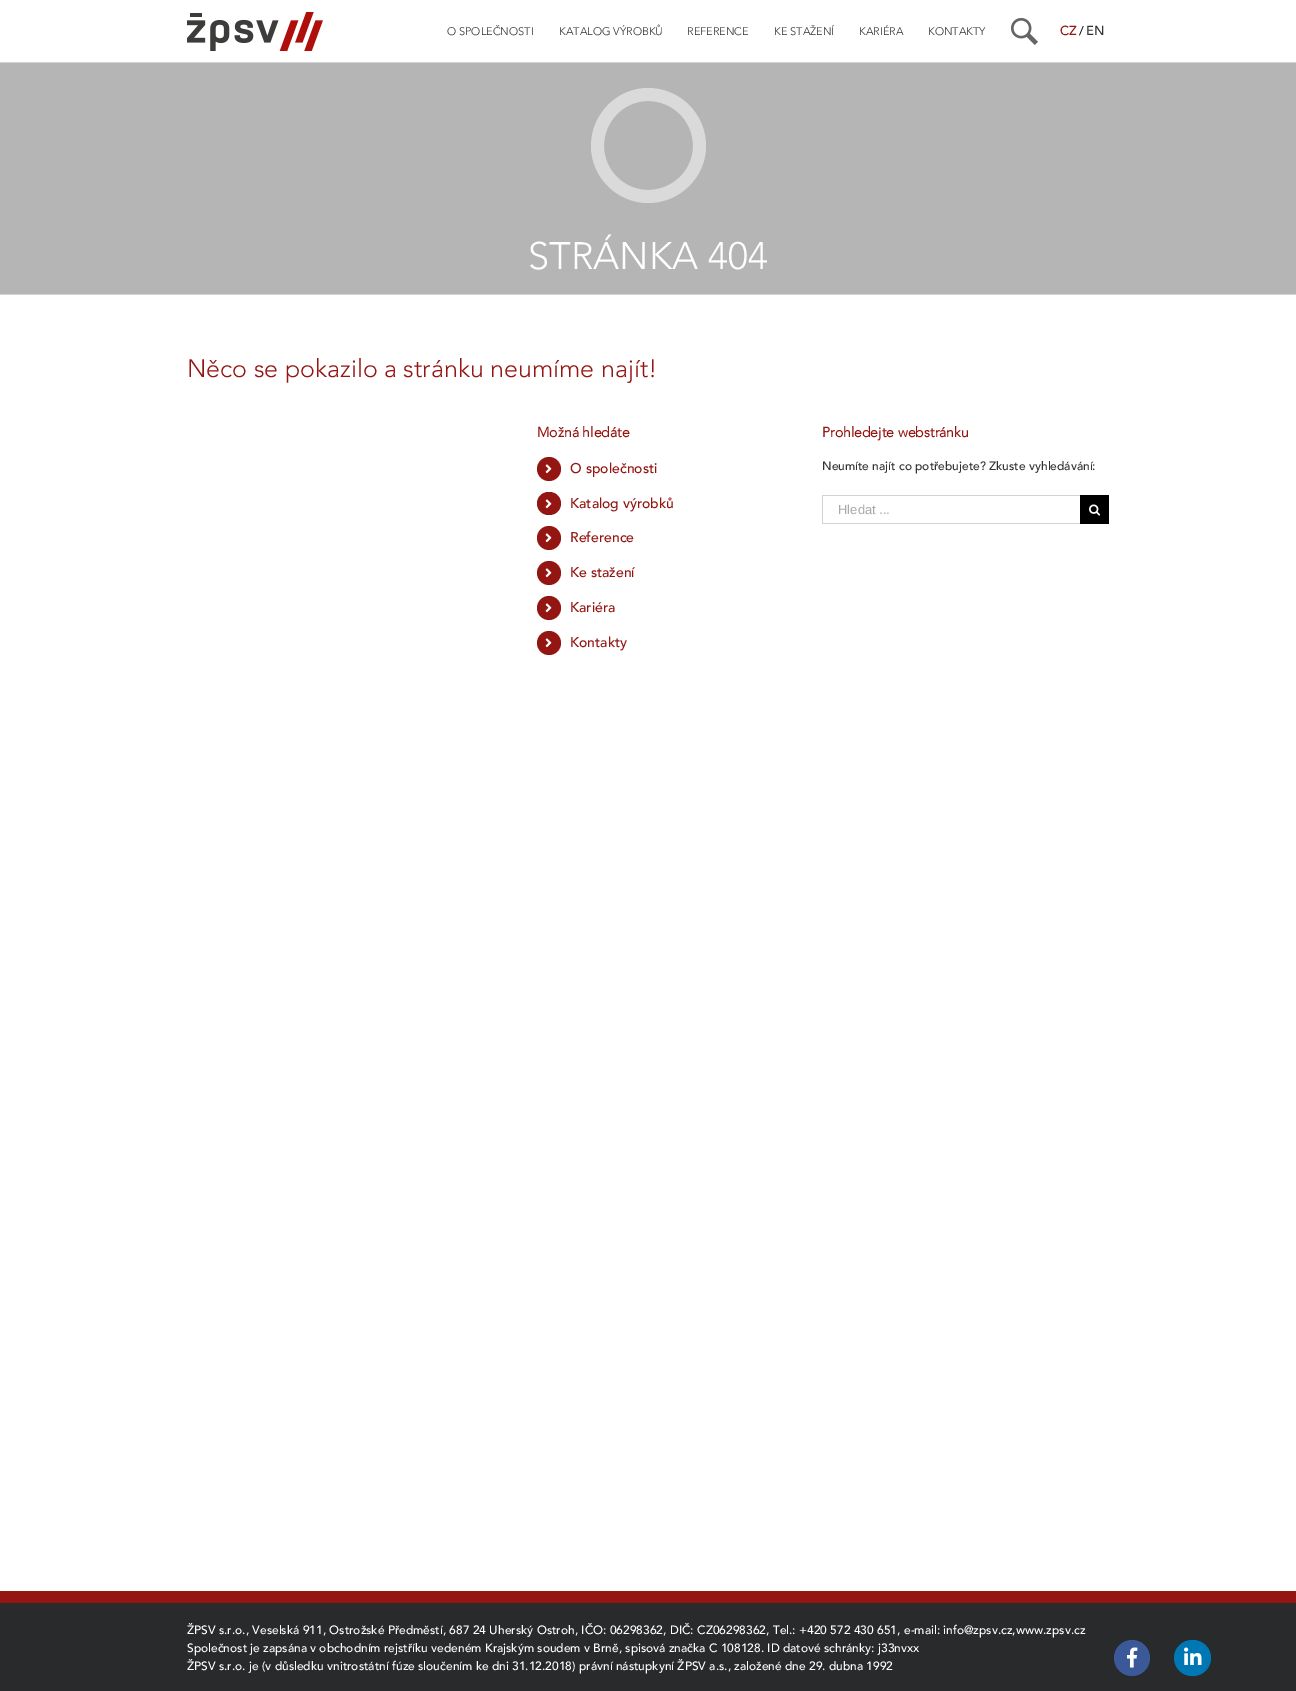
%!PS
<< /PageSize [1296 1691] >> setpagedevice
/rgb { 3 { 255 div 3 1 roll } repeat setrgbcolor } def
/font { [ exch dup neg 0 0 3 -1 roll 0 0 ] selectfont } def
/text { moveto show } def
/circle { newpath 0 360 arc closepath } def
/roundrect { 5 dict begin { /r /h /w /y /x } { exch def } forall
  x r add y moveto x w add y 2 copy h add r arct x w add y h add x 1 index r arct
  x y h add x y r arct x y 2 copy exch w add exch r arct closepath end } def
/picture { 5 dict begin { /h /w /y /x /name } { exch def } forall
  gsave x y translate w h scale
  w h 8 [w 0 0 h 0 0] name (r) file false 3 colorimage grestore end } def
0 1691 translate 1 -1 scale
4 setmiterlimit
255 255 255 rgb
0 0 1296 1691 rectfill
(img_01.rgb) 187 12 136 39 picture
(img_02.rgb) 1011 18 27 27 picture
181 181 181 rgb
0 63 1296 231 rectfill
210 211 212 rgb
0 62 1296 1 rectfill
0 294 1296 1 rectfill
218 218 218 rgb
648 203 moveto -31 0 -57 -26 -57 -57 rcurveto 0 -32 26 -58 57 -58 rcurveto 32 0 58 26 58 58 rcurveto 0 31 -26 57 -58 57 rcurveto closepath 648 101 moveto -24 0 -44 20 -44 45 rcurveto 0 24 20 44 44 44 rcurveto 25 0 45 -20 45 -44 rcurveto 0 -25 -20 -45 -45 -45 rcurveto closepath fill
148 22 18 rgb
549 469 12 circle fill
(img_03.rgb) 545 464 7 10 picture
537 492 24 23 11.5 roundrect fill
(img_03.rgb) 545 499 7 10 picture
549 538 12 circle fill
(img_03.rgb) 545 533 7 10 picture
549 573 12 circle fill
(img_03.rgb) 545 568 7 10 picture
549 608 12 circle fill
(img_03.rgb) 545 603 7 10 picture
549 643 12 circle fill
(img_03.rgb) 545 638 7 10 picture
210 210 210 rgb
822 495 258 1 rectfill
822 523 258 1 rectfill
822 495 1 29 rectfill
0 0 0 rgb
1080 495 29 29 rectfill
(img_04.rgb) 1089 504 12 12 picture
40 42 43 rgb
0 1603 1296 88 rectfill
148 22 18 rgb
0 1591 1296 12 rectfill
59 89 152 rgb
1132 1658 18 circle fill
(img_05.rgb) 1127 1647 11 21 picture
0 119 181 rgb
1174 1640 37 36 18 roundrect fill
(img_06.rgb) 1184 1647 18 18 picture
/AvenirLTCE-Light 11 font
49 49 51 rgb
(O SPOLEČNOSTI) 447 35 text
(KATALOG VÝROBKŮ) 559 35 text
(REFERENCE) 687 35 text
(KE STAŽENÍ) 774 35 text
(KARIÉRA) 859 35 text
(KONTAKTY) 928 35 text
/AvenirLTCE-Medium 13 font
148 22 18 rgb
(CZ) 1060 35 text
/AvenirLTCE-Medium 12 font
0 0 0 rgb
(/) 1079 35 text
/AvenirLTCE-Medium 13 font
49 49 51 rgb
(EN) 1086 35 text
/AvenirLTCE-Light 38 font
255 255 255 rgb
(STRÁNKA 404) 528 269 text
/AvenirLTCE-Light 25 font
148 22 18 rgb
(Něco se pokazilo a stránku neumíme najít!) 187 377 text
/AvenirLTCE-Bold 14 font
(Možná hledáte) 537 437 text
/AvenirLTCE-Medium 14 font
(O společnosti) 570 473 text
(Katalog výrobků) 570 508 text
(Reference) 570 542 text
(Ke stažení) 570 577 text
(Kariéra) 570 612 text
(Kontakty) 570 647 text
/AvenirLTCE-Bold 14 font
(Prohledejte webstránku) 822 437 text
/AvenirLTCE-Medium 12 font
49 49 51 rgb
(Neumíte najít co potřebujete? Zkuste vyhledávání:) 822 470 text
/LiberationSans-Regular 13 font
170 169 169 rgb
(Hledat ...) 838 514 text
/AvenirLTCE-Medium 12 font
255 255 255 rgb
(ŽPSV s.r.o., Veselská 911, Ostrožské Předměstí, 687 24 Uherský Ostroh, IČO: 06298362, DIČ: CZ06298362, Tel.: +420 572 430 651, e-mail: info@zpsv.cz,www.zpsv.cz) 187 1634 text
(Společnost je zapsána v obchodním rejstříku vedeném Krajským soudem v Brně, spisová značka C 108128. ID datové schránky: j33nvxx) 187 1652 text
(ŽPSV s.r.o. je \(v důsledku vnitrostátní fúze sloučením ke dni 31.12.2018\) právní nástupkyní ŽPSV a.s., založené dne 29. dubna 1992) 187 1670 text
showpage
